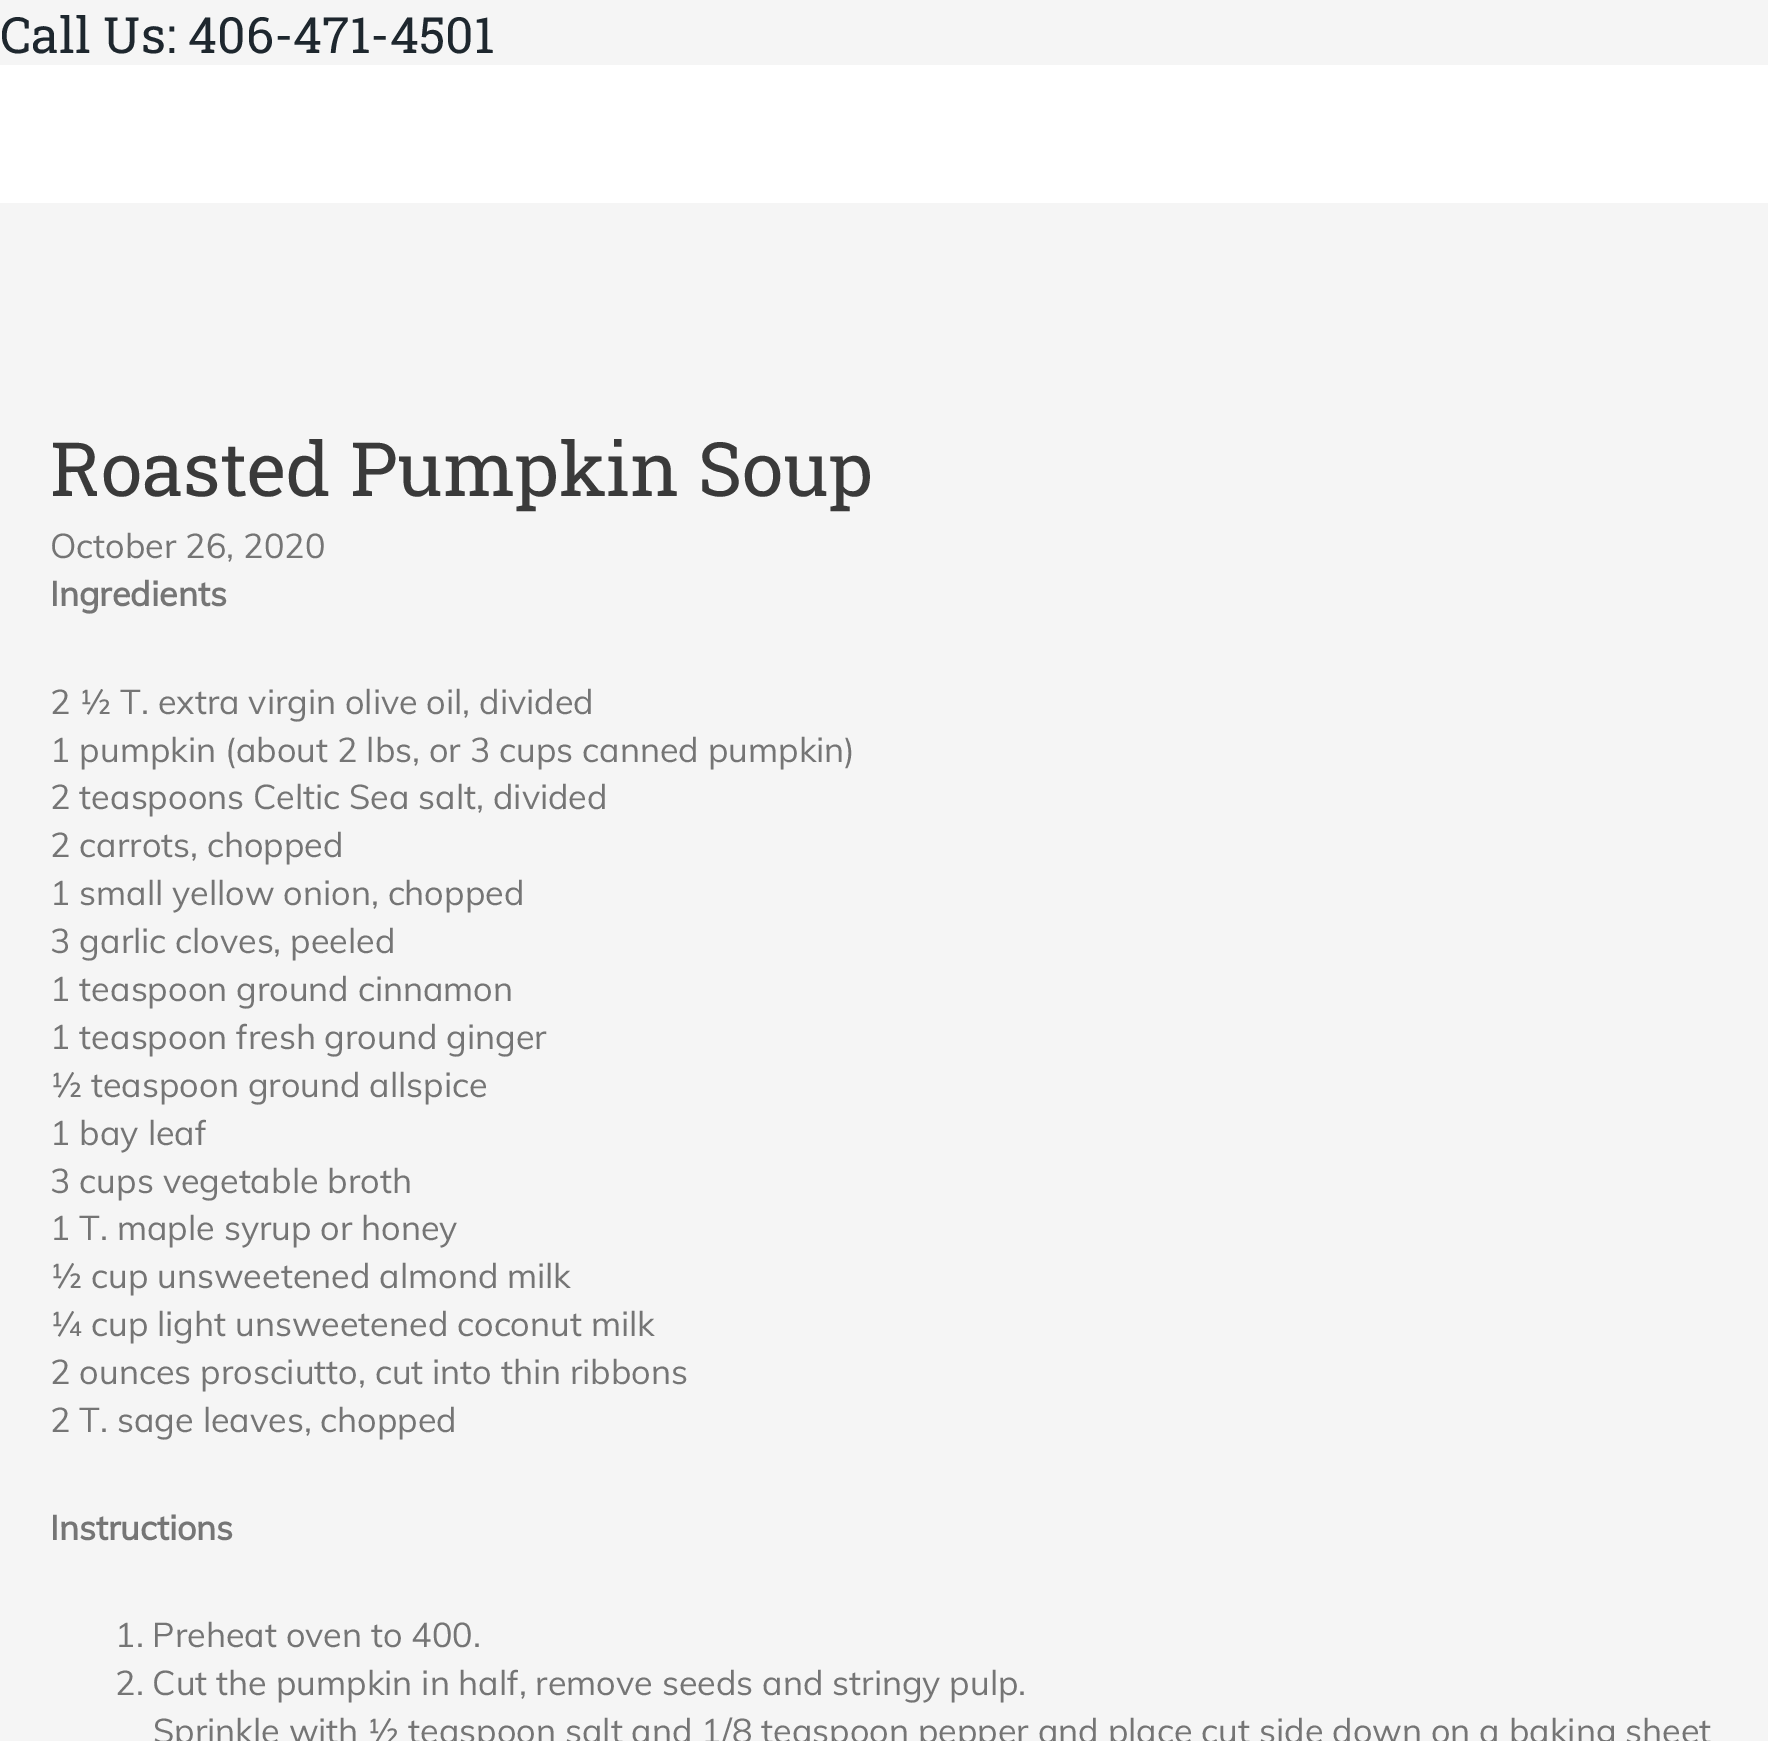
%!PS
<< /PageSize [1768 1741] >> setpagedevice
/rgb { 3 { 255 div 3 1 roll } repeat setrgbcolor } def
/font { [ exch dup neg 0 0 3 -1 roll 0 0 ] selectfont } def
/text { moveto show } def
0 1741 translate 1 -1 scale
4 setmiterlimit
245 245 245 rgb
0 0 1768 1741 rectfill
255 255 255 rgb
0 65 1768 138 rectfill
/RobotoSlab-Regular 50 font
30 39 46 rgb
(Call Us: 406-471-4501) 0 53 text
/RobotoSlab-Regular 75 font
58 58 58 rgb
(Roasted Pumpkin Soup) 50 496 text
/Muli-Regular 34.2 font
117 117 117 rgb
(October 26, 2020) 50 558 text
/Muli-Bold 34.2 font
(Ingredients) 50 606 text
/Muli-Regular 34.2 font
(2 ½ T. extra virgin olive oil, divided) 50 714 text
(1 pumpkin \(about 2 lbs, or 3 cups canned pumpkin\)) 50 762 text
(2 teaspoons Celtic Sea salt, divided) 50 809 text
(2 carrots, chopped) 50 857 text
(1 small yellow onion, chopped) 50 905 text
(3 garlic cloves, peeled) 50 953 text
(1 teaspoon ground cinnamon) 50 1001 text
(1 teaspoon fresh ground ginger) 50 1049 text
(½ teaspoon ground allspice) 50 1097 text
(1 bay leaf) 50 1145 text
(3 cups vegetable broth) 50 1193 text
(1 T. maple syrup or honey) 50 1240 text
(½ cup unsweetened almond milk) 50 1288 text
(¼ cup light unsweetened coconut milk) 50 1336 text
(2 ounces prosciutto, cut into thin ribbons) 50 1384 text
(2 T. sage leaves, chopped) 50 1432 text
/Muli-Bold 34.2 font
(Instructions) 50 1540 text
/Muli-Regular 34.2 font
(1. Preheat oven to 400.) 115 1647 text
(2. Cut the pumpkin in half, remove seeds and stringy pulp.) 115 1695 text
(Sprinkle with ½ teaspoon salt and 1/8 teaspoon pepper and place cut side down on a baking sheet) 153 1743 text
showpage
